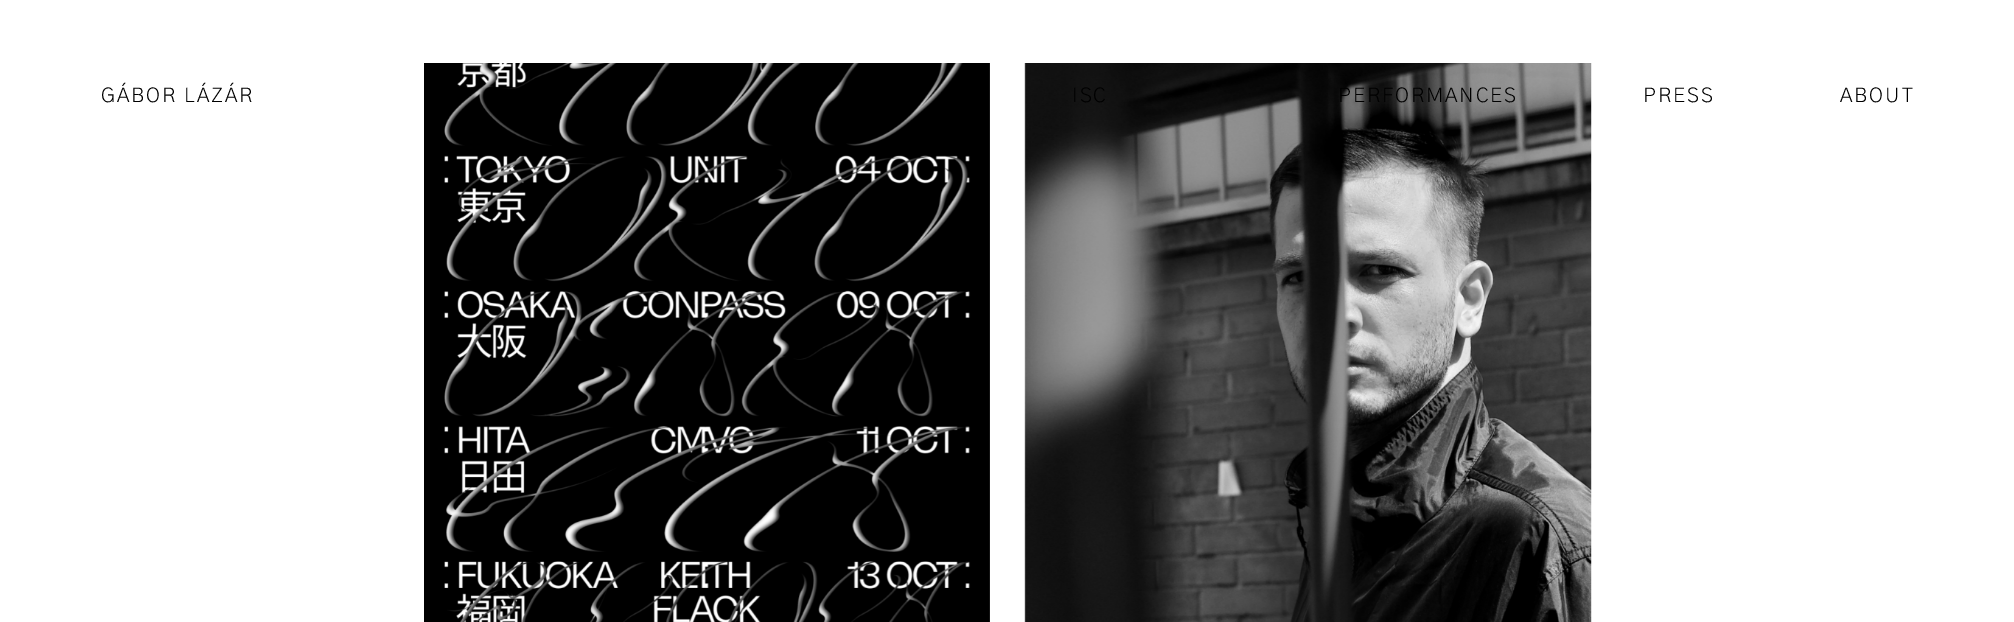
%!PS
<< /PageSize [2014 622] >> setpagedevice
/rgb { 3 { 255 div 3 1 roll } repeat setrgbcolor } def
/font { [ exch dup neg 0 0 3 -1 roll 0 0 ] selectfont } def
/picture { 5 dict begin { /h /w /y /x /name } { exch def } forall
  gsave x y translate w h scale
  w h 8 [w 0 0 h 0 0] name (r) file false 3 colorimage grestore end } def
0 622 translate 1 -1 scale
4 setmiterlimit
255 255 255 rgb
0 0 2014 622 rectfill
(img_01.rgb) 424 63 566 559 picture
(img_02.rgb) 1024 63 568 559 picture
/GothicA1-Light 20 font
0 0 0 rgb
101 102 moveto 2 0 (GÁBOR LÁZÁR) ashow
1072 102 moveto 2 0 (ISC) ashow
1338 102 moveto 2 0 (PERFORMANCES) ashow
1643 102 moveto 2 0 (PRESS) ashow
1840 102 moveto 2 0 (ABOUT) ashow
showpage
